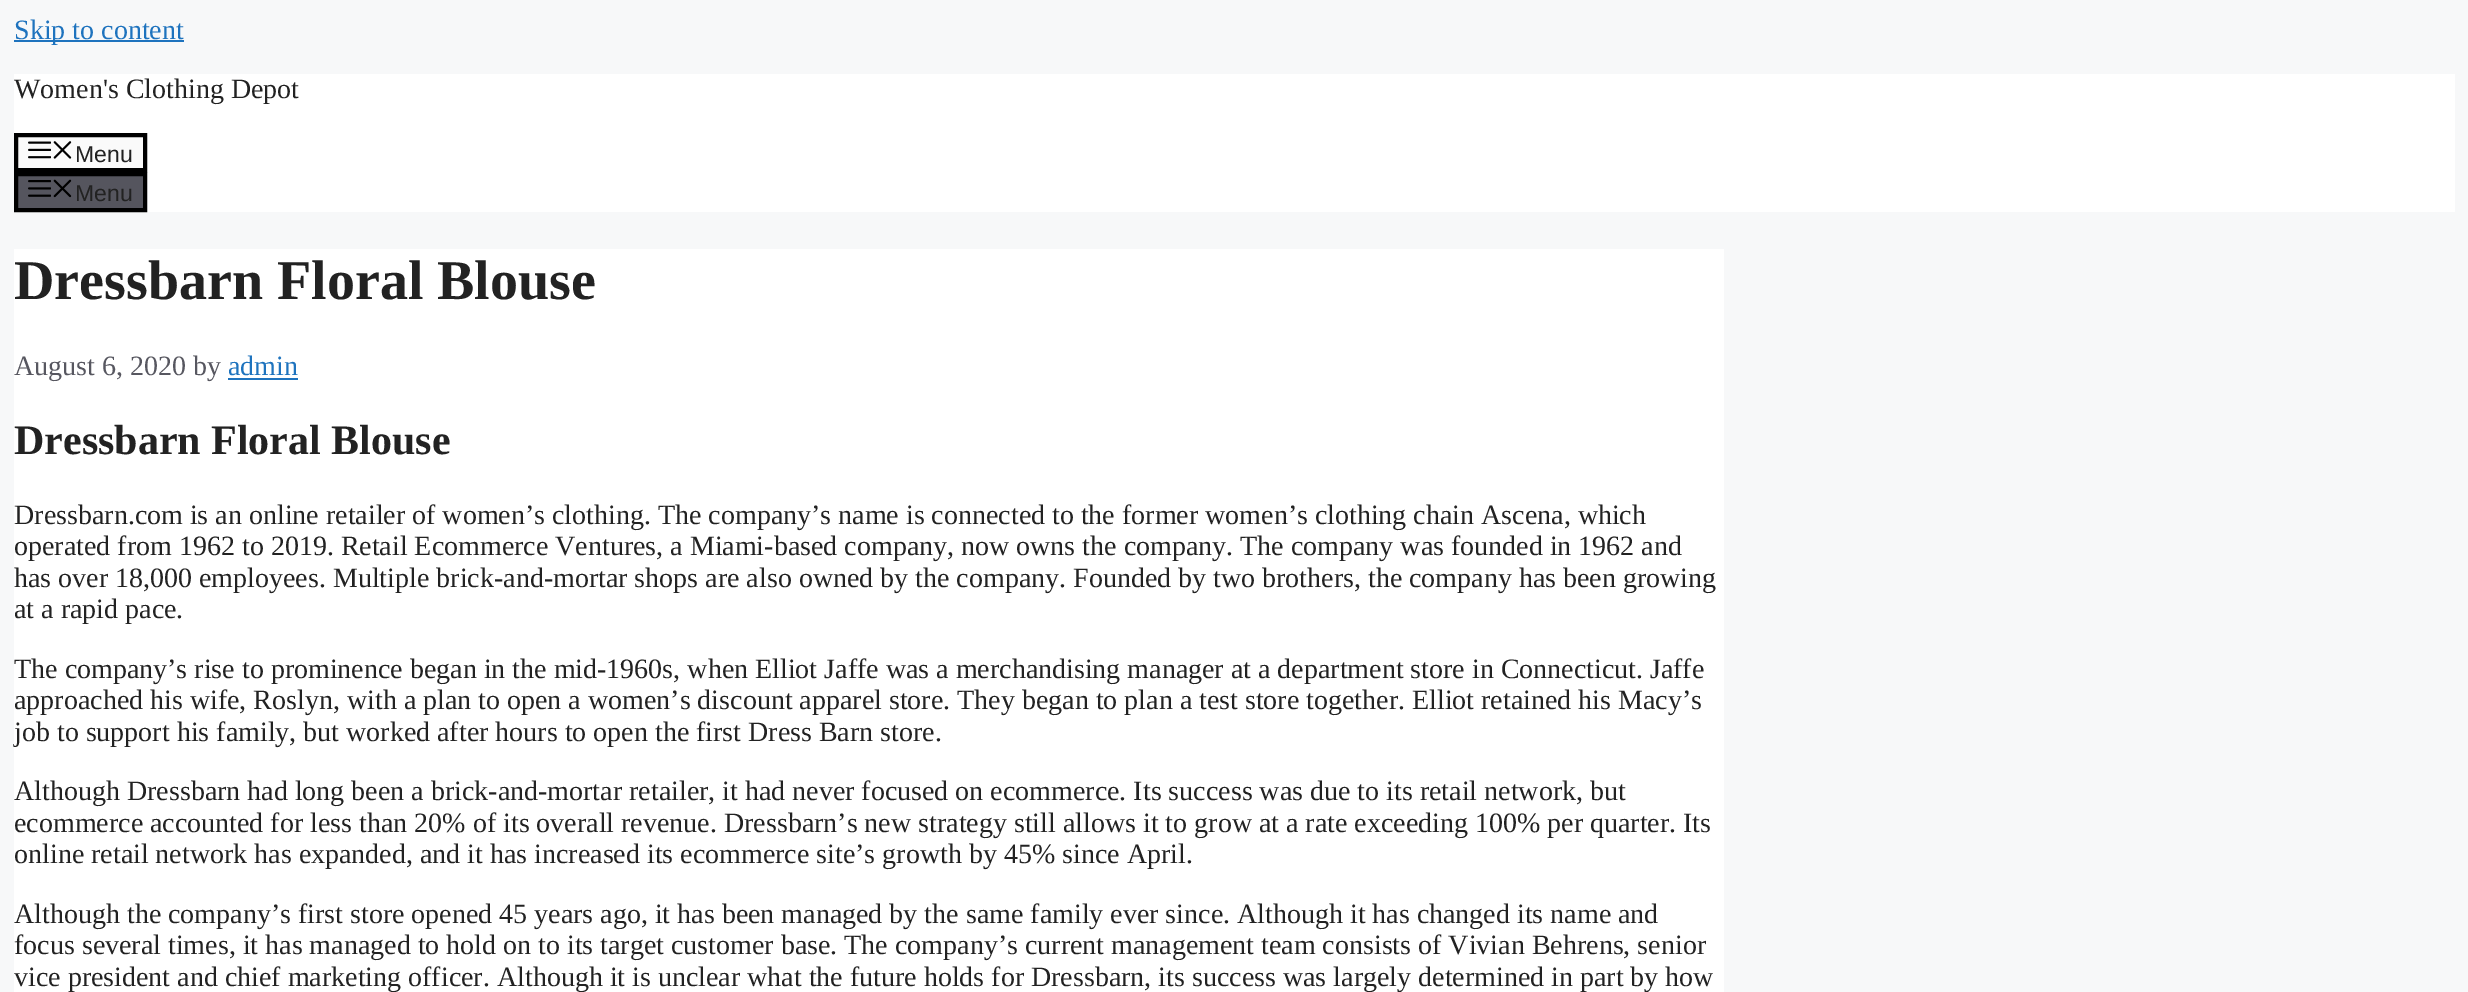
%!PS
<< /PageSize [2468 992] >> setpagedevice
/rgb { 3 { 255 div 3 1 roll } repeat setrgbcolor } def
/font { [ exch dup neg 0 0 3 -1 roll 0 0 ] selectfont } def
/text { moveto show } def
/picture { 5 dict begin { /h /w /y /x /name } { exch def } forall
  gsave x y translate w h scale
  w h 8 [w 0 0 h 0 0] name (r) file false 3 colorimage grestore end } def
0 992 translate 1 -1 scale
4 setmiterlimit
247 248 249 rgb
0 0 2468 992 rectfill
30 115 190 rgb
14 40 170 2 rectfill
255 255 255 rgb
14 74 2441 138 rectfill
250 250 250 rgb
16 135 moveto 129 0 rlineto 0 35 rlineto -129 0 rlineto closepath gsave fill grestore
0 0 0 rgb
4 setlinewidth
stroke
(img_01.rgb) 28 141 23 18 picture
(img_02.rgb) 53 141 19 18 picture
85 85 94 rgb
16 174 moveto 129 0 rlineto 0 36 rlineto -129 0 rlineto closepath gsave fill grestore
0 0 0 rgb
stroke
(img_03.rgb) 28 180 23 17 picture
(img_04.rgb) 53 179 19 19 picture
255 255 255 rgb
14 249 1710 743 rectfill
30 115 190 rgb
228 378 70 2 rectfill
/LiberationSerif-Regular 28 font
(Skip to content) 14 39 text
34 34 34 rgb
(Women's Clothing Depot) 14 98 text
/LiberationSans-Regular 23 font
(Menu) 75 162 text
(Menu) 75 201 text
/LiberationSerif-Bold 56 font
(Dressbarn Floral Blouse) 14 299 text
/LiberationSerif-Regular 28 font
87 87 96 rgb
(August 6, 2020 by) 14 375 text
30 115 190 rgb
(admin) 228 375 text
/LiberationSerif-Bold 42 font
34 34 34 rgb
(Dressbarn Floral Blouse) 14 454 text
/LiberationSerif-Regular 28 font
(Dressbarn.com is an online retailer of women’s clothing. The company’s name is connected to the former women’s clothing chain Ascena, which) 14 524 text
(operated from 1962 to 2019. Retail Ecommerce Ventures, a Miami-based company, now owns the company. The company was founded in 1962 and) 14 555 text
(has over 18,000 employees. Multiple brick-and-mortar shops are also owned by the company. Founded by two brothers, the company has been growing) 14 587 text
(at a rapid pace.) 14 618 text
(The company’s rise to prominence began in the mid-1960s, when Elliot Jaffe was a merchandising manager at a department store in Connecticut. Jaffe) 14 678 text
(approached his wife, Roslyn, with a plan to open a women’s discount apparel store. They began to plan a test store together. Elliot retained his Macy’s) 14 709 text
(job to support his family, but worked after hours to open the first Dress Barn store.) 14 741 text
(Although Dressbarn had long been a brick-and-mortar retailer, it had never focused on ecommerce. Its success was due to its retail network, but) 14 800 text
(ecommerce accounted for less than 20% of its overall revenue. Dressbarn’s new strategy still allows it to grow at a rate exceeding 100% per quarter. Its) 14 832 text
(online retail network has expanded, and it has increased its ecommerce site’s growth by 45% since April.) 14 863 text
(Although the company’s first store opened 45 years ago, it has been managed by the same family ever since. Although it has changed its name and) 14 923 text
(focus several times, it has managed to hold on to its target customer base. The company’s current management team consists of Vivian Behrens, senior) 14 954 text
(vice president and chief marketing officer. Although it is unclear what the future holds for Dressbarn, its success was largely determined in part by how) 14 986 text
showpage
